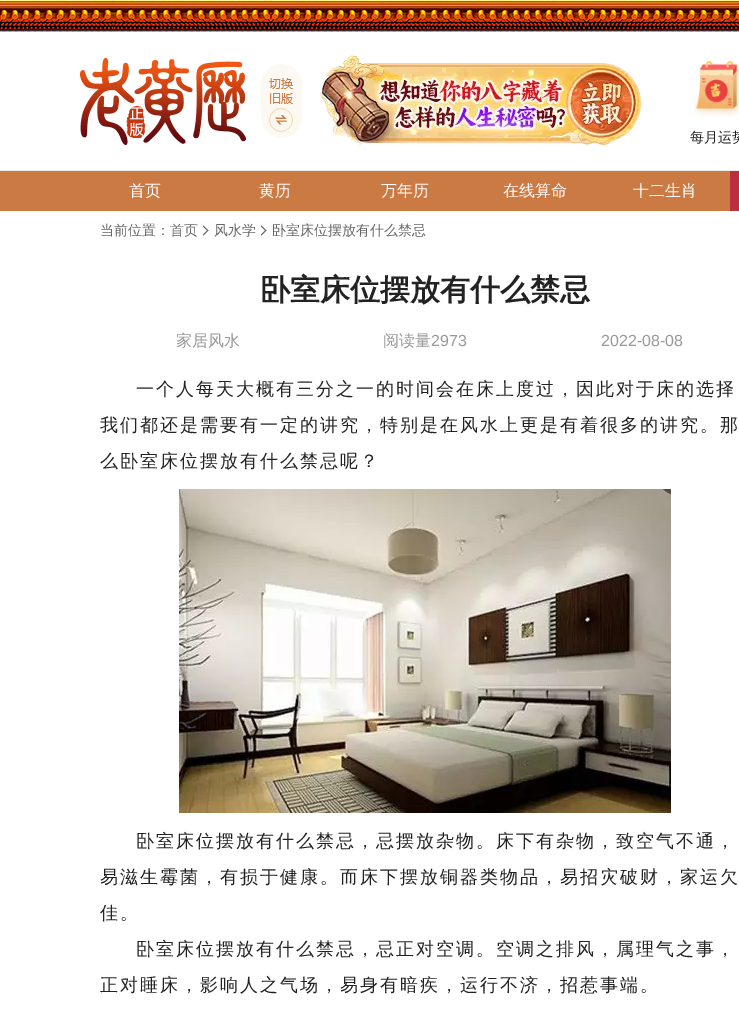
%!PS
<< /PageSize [739 1011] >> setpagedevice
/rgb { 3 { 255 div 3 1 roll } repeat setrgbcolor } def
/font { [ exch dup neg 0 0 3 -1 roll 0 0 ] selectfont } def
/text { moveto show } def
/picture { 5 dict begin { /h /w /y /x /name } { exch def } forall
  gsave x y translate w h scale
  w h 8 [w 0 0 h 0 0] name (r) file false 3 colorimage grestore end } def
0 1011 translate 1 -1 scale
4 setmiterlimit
255 255 255 rgb
0 0 739 1011 rectfill
238 238 238 rgb
0 170 739 1 rectfill
(img_01.rgb) 0 0 739 32 picture
(img_02.rgb) 80 58 166 87 picture
(img_03.rgb) 261 64 41 74 picture
(img_04.rgb) 319 55 322 95 picture
(img_05.rgb) 693 60 46 56 picture
203 122 67 rgb
0 171 730 40 rectfill
188 47 63 rgb
730 171 9 40 rectfill
102 102 102 rgb
203.5 225.5 moveto 5 5 rlineto -1 0.5 rlineto -4.5 -4.5 rlineto closepath fill
207.5 230 moveto 1 0.5 rlineto -5 5 rlineto -0.5 -1 rlineto closepath fill
261.5 225.5 moveto 5 5 rlineto -1 0.5 rlineto -4.5 -4.5 rlineto closepath fill
265.5 230 moveto 1 0.5 rlineto -5 5 rlineto -0.5 -1 rlineto closepath fill
(img_06.rgb) 179 489 492 324 picture
/WenQuanYiZenHei-Medium 14 font
34 34 34 rgb
(每月运势) 690 142 text
/WenQuanYiZenHei-Medium 16 font
255 255 255 rgb
(首页) 129 196 text
(黄历) 259 196 text
(万年历) 381 196 text
(在线算命) 503 196 text
(十二生肖) 633 196 text
/WenQuanYiZenHei-Medium 14 font
102 102 102 rgb
(当前位置：首页) 100 235 text
(风水学) 214 235 text
(卧室床位摆放有什么禁忌) 272 235 text
/WenQuanYiZenHei-Bold 30 font
34 34 34 rgb
(卧室床位摆放有什么禁忌) 260 300 text
/WenQuanYiZenHei-Medium 16 font
153 153 153 rgb
(家居风水) 176 346 text
(阅读量) 383 346 text
/LiberationSans-Regular 16 font
(2973) 431 346 text
(2022-08-08) 601 346 text
/WenQuanYiZenHei-Medium 18 font
34 34 34 rgb
136 395 moveto 2 0 (一个人每天大概有三分之一的时间会在床上度过，因此对于床的选择) ashow
100 431 moveto 2 0 (我们都还是需要有一定的讲究，特别是在风水上更是有着很多的讲究。那) ashow
100 467 moveto 2 0 (么卧室床位摆放有什么禁忌呢？) ashow
136 847 moveto 2 0 (卧室床位摆放有什么禁忌，忌摆放杂物。床下有杂物，致空气不通，) ashow
100 883 moveto 2 0 (易滋生霉菌，有损于健康。而床下摆放铜器类物品，易招灾破财，家运欠) ashow
100 919 moveto 2 0 (佳。) ashow
136 955 moveto 2 0 (卧室床位摆放有什么禁忌，忌正对空调。空调之排风，属理气之事，) ashow
100 991 moveto 2 0 (正对睡床，影响人之气场，易身有暗疾，运行不济，招惹事端。) ashow
showpage
